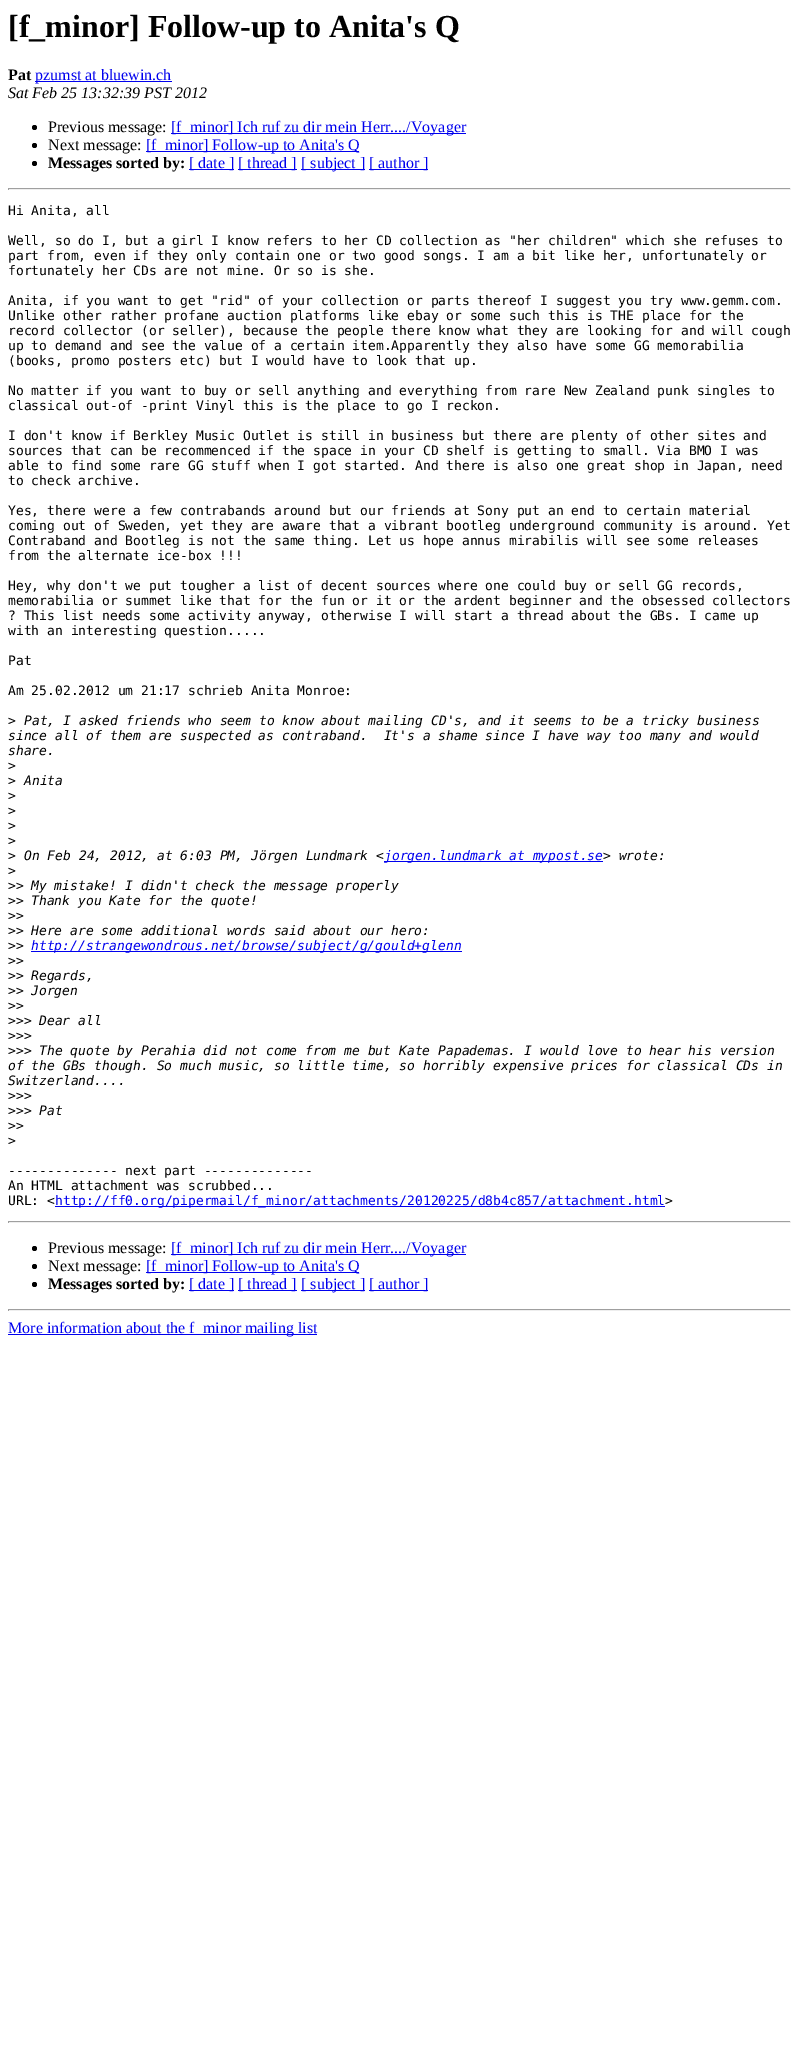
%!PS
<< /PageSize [799 2051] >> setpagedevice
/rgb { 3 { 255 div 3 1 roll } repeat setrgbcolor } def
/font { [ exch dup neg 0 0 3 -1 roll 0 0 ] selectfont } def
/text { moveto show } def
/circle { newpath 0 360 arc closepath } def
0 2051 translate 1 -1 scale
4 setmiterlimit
255 255 255 rgb
0 0 799 2051 rectfill
0 0 238 rgb
35 81 137 1 rectfill
0 0 0 rgb
34.5 127.5 2.5 circle fill
0 0 238 rgb
171 133 295 1 rectfill
0 0 0 rgb
34.5 145.5 2.5 circle fill
0 0 238 rgb
146 151 213 1 rectfill
0 0 0 rgb
34.5 163.5 2.5 circle fill
0 0 238 rgb
189 169 45 1 rectfill
238 169 59 1 rectfill
301 169 64 1 rectfill
369 169 59 1 rectfill
159 159 159 rgb
8 188 783 1 rectfill
238 238 238 rgb
790 188 1 2 rectfill
8 189 783 1 rectfill
159 159 159 rgb
8 188 1 2 rectfill
0 0 238 rgb
384 861 219 1 rectfill
31 951 431 1 rectfill
55 1206 610 1 rectfill
159 159 159 rgb
8 1221 783 1 rectfill
238 238 238 rgb
790 1221 1 2 rectfill
8 1222 783 1 rectfill
159 159 159 rgb
8 1221 1 2 rectfill
0 0 0 rgb
34.5 1248.5 2.5 circle fill
0 0 238 rgb
171 1254 295 1 rectfill
0 0 0 rgb
34.5 1266.5 2.5 circle fill
0 0 238 rgb
146 1272 213 1 rectfill
0 0 0 rgb
34.5 1284.5 2.5 circle fill
0 0 238 rgb
189 1290 45 1 rectfill
238 1290 59 1 rectfill
301 1290 64 1 rectfill
369 1290 59 1 rectfill
159 159 159 rgb
8 1309 783 1 rectfill
238 238 238 rgb
790 1309 1 2 rectfill
8 1310 783 1 rectfill
159 159 159 rgb
8 1309 1 2 rectfill
0 0 238 rgb
8 1334 309 1 rectfill
/LiberationSerif-Bold 32 font
0 0 0 rgb
([f_minor] Follow-up to Anita's Q) 8 37 text
/LiberationSerif-Bold 16 font
(Pat) 8 80 text
/LiberationSerif-Regular 16 font
0 0 238 rgb
(pzumst at bluewin.ch) 35 80 text
/LiberationSerif-Italic 16 font
0 0 0 rgb
(Sat Feb 25 13:32:39 PST 2012) 8 98 text
/LiberationSerif-Regular 16 font
(Previous message:) 48 132 text
0 0 238 rgb
([f_minor] Ich ruf zu dir mein Herr..../Voyager) 171 132 text
0 0 0 rgb
(Next message:) 48 150 text
0 0 238 rgb
([f_minor] Follow-up to Anita's Q) 146 150 text
/LiberationSerif-Bold 16 font
0 0 0 rgb
(Messages sorted by:) 48 168 text
/LiberationSerif-Regular 16 font
0 0 238 rgb
([ date ]) 189 168 text
([ thread ]) 238 168 text
([ subject ]) 301 168 text
([ author ]) 369 168 text
/DejaVuSansMono-Regular 13 font
0 0 0 rgb
(Hi Anita, all) 8 215 text
(Well, so do I, but a girl I know refers to her CD collection as "her children" which she refuses to) 8 245 text
(part from, even if they only contain one or two good songs. I am a bit like her, unfortunately or) 8 260 text
(fortunately her CDs are not mine. Or so is she.) 8 275 text
(Anita, if you want to get "rid" of your collection or parts thereof I suggest you try www.gemm.com.) 8 305 text
(Unlike other rather profane auction platforms like ebay or some such this is THE place for the) 8 320 text
(record collector \(or seller\), because the people there know what they are looking for and will cough) 8 335 text
(up to demand and see the value of a certain item.Apparently they also have some GG memorabilia) 8 350 text
(\(books, promo posters etc\) but I would have to look that up.) 8 365 text
(No matter if you want to buy or sell anything and everything from rare New Zealand punk singles to) 8 395 text
(classical out-of -print Vinyl this is the place to go I reckon.) 8 410 text
(I don't know if Berkley Music Outlet is still in business but there are plenty of other sites and) 8 440 text
(sources that can be recommenced if the space in your CD shelf is getting to small. Via BMO I was) 8 455 text
(able to find some rare GG stuff when I got started. And there is also one great shop in Japan, need) 8 470 text
(to check archive.) 8 485 text
(Yes, there were a few contrabands around but our friends at Sony put an end to certain material) 8 515 text
(coming out of Sweden, yet they are aware that a vibrant bootleg underground community is around. Yet) 8 530 text
(Contraband and Bootleg is not the same thing. Let us hope annus mirabilis will see some releases) 8 545 text
(from the alternate ice-box !!!) 8 560 text
(Hey, why don't we put tougher a list of decent sources where one could buy or sell GG records,) 8 590 text
(memorabilia or summet like that for the fun or it or the ardent beginner and the obsessed collectors) 8 605 text
(? This list needs some activity anyway, otherwise I will start a thread about the GBs. I came up) 8 620 text
(with an interesting question.....) 8 635 text
(Pat) 8 665 text
(Am 25.02.2012 um 21:17 schrieb Anita Monroe:) 8 695 text
(>) 8 725 text
/DejaVuSansMono-Italic 13 font
(Pat, I asked friends who seem to know about mailing CD's, and it seems to be a tricky business) 24 725 text
(since all of them are suspected as contraband.  It's a shame since I have way too many and would) 8 740 text
(share.) 8 755 text
/DejaVuSansMono-Regular 13 font
(>) 8 770 text
(>) 8 785 text
/DejaVuSansMono-Italic 13 font
(Anita) 24 785 text
/DejaVuSansMono-Regular 13 font
(>) 8 800 text
(>) 8 815 text
(>) 8 830 text
(>) 8 845 text
(>) 8 860 text
/DejaVuSansMono-Italic 13 font
(On Feb 24, 2012, at 6:03 PM, Jörgen Lundmark <) 24 860 text
0 0 238 rgb
(jorgen.lundmark at mypost.se) 384 860 text
0 0 0 rgb
(> wrote:) 603 860 text
/DejaVuSansMono-Regular 13 font
(>) 8 875 text
(>>) 8 890 text
/DejaVuSansMono-Italic 13 font
(My mistake! I didn't check the message properly) 31 890 text
/DejaVuSansMono-Regular 13 font
(>>) 8 905 text
/DejaVuSansMono-Italic 13 font
(Thank you Kate for the quote!) 31 905 text
/DejaVuSansMono-Regular 13 font
(>>) 8 920 text
(>>) 8 935 text
/DejaVuSansMono-Italic 13 font
(Here are some additional words said about our hero:) 31 935 text
/DejaVuSansMono-Regular 13 font
(>>) 8 950 text
/DejaVuSansMono-Italic 13 font
0 0 238 rgb
(http://strangewondrous.net/browse/subject/g/gould+glenn) 31 950 text
/DejaVuSansMono-Regular 13 font
0 0 0 rgb
(>>) 8 965 text
(>>) 8 980 text
/DejaVuSansMono-Italic 13 font
(Regards,) 31 980 text
/DejaVuSansMono-Regular 13 font
(>>) 8 995 text
/DejaVuSansMono-Italic 13 font
(Jorgen) 31 995 text
/DejaVuSansMono-Regular 13 font
(>>) 8 1010 text
(>>>) 8 1025 text
/DejaVuSansMono-Italic 13 font
(Dear all) 39 1025 text
/DejaVuSansMono-Regular 13 font
(>>>) 8 1040 text
(>>>) 8 1055 text
/DejaVuSansMono-Italic 13 font
(The quote by Perahia did not come from me but Kate Papademas. I would love to hear his version) 39 1055 text
(of the GBs though. So much music, so little time, so horribly expensive prices for classical CDs in) 8 1070 text
(Switzerland....) 8 1085 text
/DejaVuSansMono-Regular 13 font
(>>>) 8 1100 text
(>>>) 8 1115 text
/DejaVuSansMono-Italic 13 font
(Pat) 39 1115 text
/DejaVuSansMono-Regular 13 font
(>>) 8 1130 text
(>) 8 1145 text
(-------------- next part --------------) 8 1175 text
(An HTML attachment was scrubbed...) 8 1190 text
(URL: <) 8 1205 text
0 0 238 rgb
(http://ff0.org/pipermail/f_minor/attachments/20120225/d8b4c857/attachment.html) 55 1205 text
0 0 0 rgb
(>) 665 1205 text
/LiberationSerif-Regular 16 font
(Previous message:) 48 1253 text
0 0 238 rgb
([f_minor] Ich ruf zu dir mein Herr..../Voyager) 171 1253 text
0 0 0 rgb
(Next message:) 48 1271 text
0 0 238 rgb
([f_minor] Follow-up to Anita's Q) 146 1271 text
/LiberationSerif-Bold 16 font
0 0 0 rgb
(Messages sorted by:) 48 1289 text
/LiberationSerif-Regular 16 font
0 0 238 rgb
([ date ]) 189 1289 text
([ thread ]) 238 1289 text
([ subject ]) 301 1289 text
([ author ]) 369 1289 text
(More information about the f_minor mailing list) 8 1333 text
showpage
